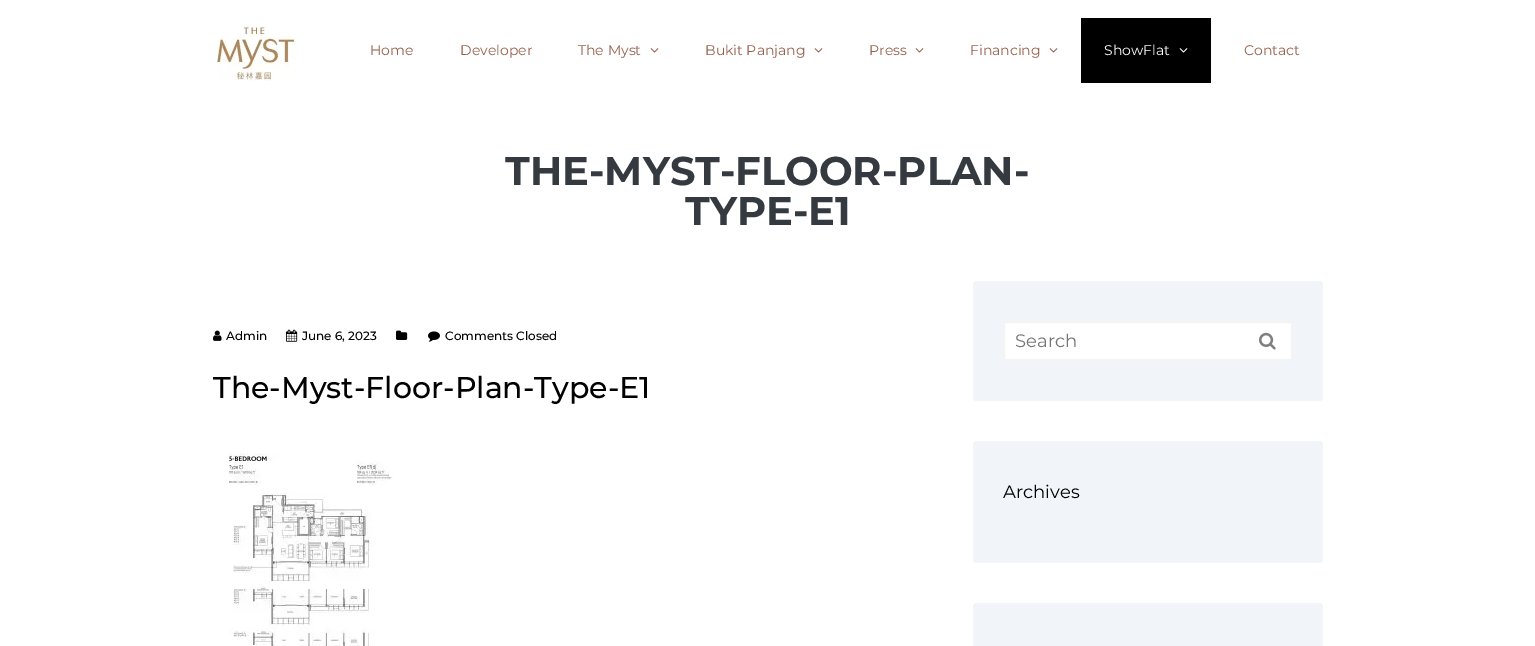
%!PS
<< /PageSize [1535 646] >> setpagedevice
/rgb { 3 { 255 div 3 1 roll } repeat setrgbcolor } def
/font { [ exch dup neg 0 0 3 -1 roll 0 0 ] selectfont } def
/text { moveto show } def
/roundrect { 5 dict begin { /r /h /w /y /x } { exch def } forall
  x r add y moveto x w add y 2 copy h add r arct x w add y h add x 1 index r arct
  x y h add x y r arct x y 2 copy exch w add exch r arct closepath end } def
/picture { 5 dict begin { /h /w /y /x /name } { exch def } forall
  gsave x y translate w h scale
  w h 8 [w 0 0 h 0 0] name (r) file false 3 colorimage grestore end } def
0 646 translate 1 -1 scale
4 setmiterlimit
255 255 255 rgb
0 0 1535 646 rectfill
(img_01.rgb) 217 26 80 55 picture
(img_02.rgb) 650 48 9 5 picture
(img_02.rgb) 814 48 9 5 picture
(img_02.rgb) 915 48 9 5 picture
(img_02.rgb) 1049 48 9 5 picture
0 0 0 rgb
1081 18 130 65 rectfill
(img_03.rgb) 1179 48 9 5 picture
(img_04.rgb) 213 330 9 11 picture
(img_05.rgb) 286 329 12 13 picture
(img_06.rgb) 396 330 12 10 picture
(img_07.rgb) 428 331 12 11 picture
(img_08.rgb) 229 453 164 193 picture
241 244 248 rgb
973 281 350 120 4 roundrect fill
255 255 255 rgb
1004 322 288 38 2 roundrect gsave fill grestore
244 244 244 rgb
2 setlinewidth
stroke
(img_09.rgb) 1259 332 17 18 picture
241 244 248 rgb
973 441 350 122 4 roundrect fill
973 603 350 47 4 roundrect fill
/Montserrat-Regular 14 font
150 96 75 rgb
(Home) 370 55 text
(Developer) 460 55 text
(The Myst) 578 55 text
(Bukit Panjang) 705 55 text
(Press) 869 55 text
(Financing) 970 55 text
255 255 255 rgb
(ShowFlat) 1104 55 text
150 96 75 rgb
(Contact) 1244 55 text
/Montserrat-Bold 40 font
52 58 64 rgb
(THE-MYST-FLOOR-PLAN-) 505 185 text
(TYPE-E1) 685 225 text
/Montserrat-Medium 12 font
0 0 0 rgb
(Admin) 226 340 text
(June 6, 2023) 302 340 text
(Comments Closed) 445 340 text
/Montserrat-Medium 30 font
(The-Myst-Floor-Plan-Type-E1) 213 398 text
/Montserrat-Regular 18 font
117 117 117 rgb
(Search) 1015 347 text
0 0 0 rgb
(Archives) 1003 498 text
showpage
